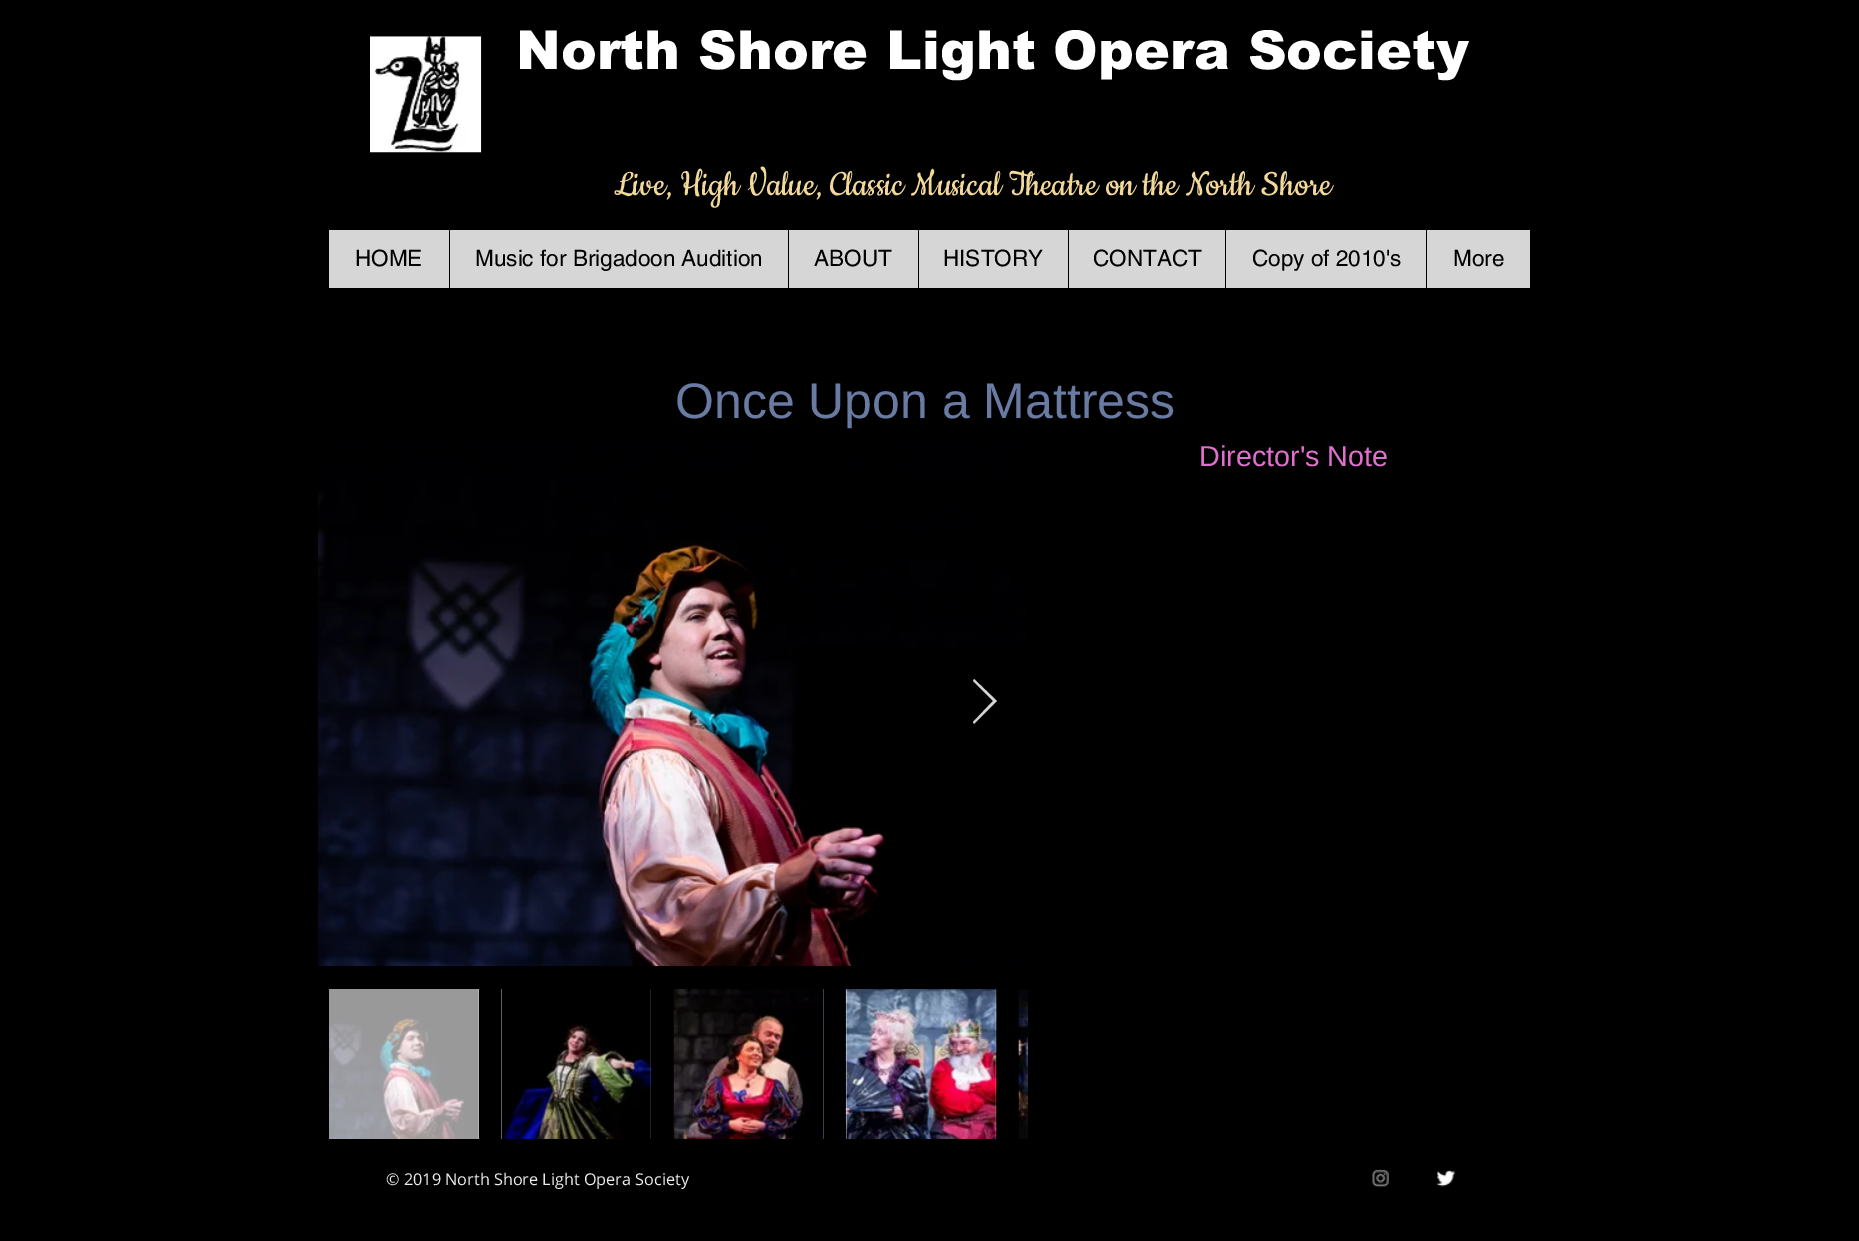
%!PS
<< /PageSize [1859 1241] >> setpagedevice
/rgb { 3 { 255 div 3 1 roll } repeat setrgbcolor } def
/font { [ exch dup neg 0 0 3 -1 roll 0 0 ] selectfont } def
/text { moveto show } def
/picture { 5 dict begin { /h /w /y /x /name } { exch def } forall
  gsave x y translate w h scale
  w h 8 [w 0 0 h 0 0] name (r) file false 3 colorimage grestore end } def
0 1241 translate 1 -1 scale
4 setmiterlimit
0 0 0 rgb
0 0 1859 1241 rectfill
(img_01.rgb) 370 36 112 117 picture
214 214 214 rgb
329 230 1201 58 rectfill
0 0 0 rgb
449 230 1 58 rectfill
788 230 1 58 rectfill
918 230 1 58 rectfill
1068 230 1 58 rectfill
1225 230 1 58 rectfill
1426 230 1 58 rectfill
(img_02.rgb) 318 440 710 526 picture
212 212 212 rgb
973 681 moveto 1 -2 rlineto 23 22 rlineto -23 23 rlineto -1 -2 rlineto 20 -21 rlineto closepath fill
(img_03.rgb) 329 989 150 150 picture
255 255 255 rgb
501 989 150 150 rectfill
(img_04.rgb) 501 989 151 150 picture
(img_05.rgb) 673 989 151 150 picture
846 989 150 150 rectfill
(img_06.rgb) 845 989 152 150 picture
(img_07.rgb) 1018 989 10 150 picture
(img_08.rgb) 1372 1169 17 18 picture
(img_09.rgb) 1436 1170 20 17 picture
/arial-Black 53.75 font
(North Shore Light Opera Society) 516 69 text
/Cookie-Regular 40 font
242 217 153 rgb
(Live, High Value, Classic Musical Theatre on the North Shore) 614 195 text
/helvetica-Regular 22.5 font
0 0 0 rgb
(HOME) 355 266 text
(Music for Brigadoon Audition) 475 266 text
(ABOUT) 814 266 text
(HISTORY) 943 266 text
(CONTACT) 1093 266 text
(Copy of 2010's) 1252 266 text
(More) 1453 266 text
/LiberationSans-Regular 50 font
105 123 162 rgb
(Once Upon a Mattress) 675 418 text
/LiberationSans-Regular 28.75 font
224 112 205 rgb
(Director's Note) 1199 466 text
/OpenSans-Regular 16.25 font
236 236 236 rgb
(© 2019 North Shore Light Opera Society) 386 1185 text
showpage
